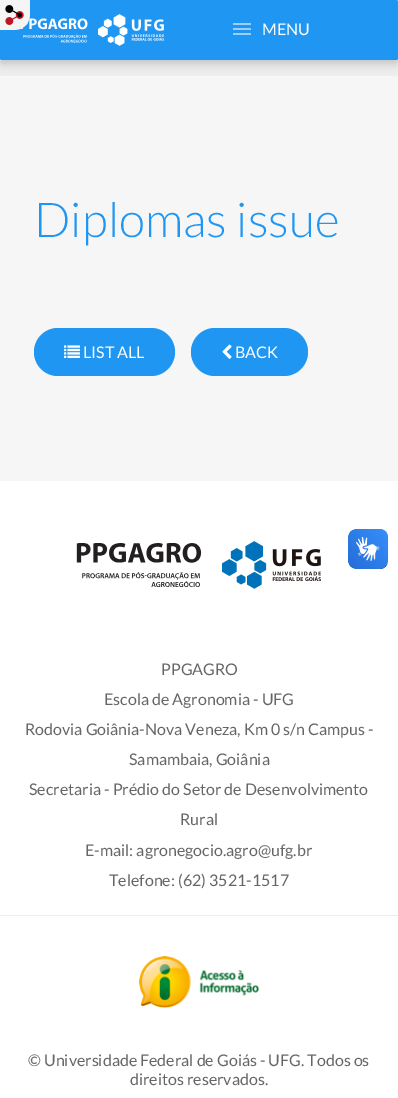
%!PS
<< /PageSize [398 1098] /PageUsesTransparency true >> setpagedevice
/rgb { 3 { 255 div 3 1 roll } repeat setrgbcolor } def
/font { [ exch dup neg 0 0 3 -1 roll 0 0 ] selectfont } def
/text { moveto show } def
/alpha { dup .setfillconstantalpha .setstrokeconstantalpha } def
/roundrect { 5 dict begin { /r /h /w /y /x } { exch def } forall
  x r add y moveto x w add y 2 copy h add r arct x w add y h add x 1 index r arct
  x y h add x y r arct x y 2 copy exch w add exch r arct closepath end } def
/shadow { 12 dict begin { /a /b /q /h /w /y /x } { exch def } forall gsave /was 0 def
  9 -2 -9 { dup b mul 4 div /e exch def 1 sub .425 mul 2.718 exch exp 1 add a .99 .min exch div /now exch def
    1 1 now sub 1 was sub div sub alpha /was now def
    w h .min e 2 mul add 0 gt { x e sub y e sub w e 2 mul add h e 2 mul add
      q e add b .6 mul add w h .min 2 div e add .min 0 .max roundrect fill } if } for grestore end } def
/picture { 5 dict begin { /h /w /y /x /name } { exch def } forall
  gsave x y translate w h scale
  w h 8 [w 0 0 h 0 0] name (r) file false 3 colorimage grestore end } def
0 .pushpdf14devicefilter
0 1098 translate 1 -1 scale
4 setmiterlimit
246 246 246 rgb
0 0 398 1098 rectfill
238 238 238 rgb
0 0 398 76 rectfill
0 0 0 rgb
0 3 398 60 2 5 0.2 shadow
32 150 243 rgb
0 0 398 60 2 roundrect fill
(img_02.rgb) 20 18 68 25 picture
(img_01.rgb) 0 0 30 30 picture
(img_03.rgb) 98 14 66 32 picture
(img_04.rgb) 233 23 18 12 picture
34 328 141 48 24 roundrect fill
(img_05.rgb) 64 345 16 13 picture
191 328 117 48 24 roundrect fill
(img_06.rgb) 222 344 10 15 picture
255 255 255 rgb
0 481 398 617 rectfill
(img_07.rgb) 348 529 40 40 picture
(img_08.rgb) 348 529 40 40 picture
(img_09.rgb) 76 543 126 44 picture
(img_10.rgb) 222 541 99 48 picture
236 236 236 rgb
0 915 398 1 rectfill
(img_11.rgb) 139 956 120 52 picture
/Lato-Regular 16 font
255 255 255 rgb
(MENU) 262 35 text
/Lato-Light 48 font
32 150 243 rgb
(Diplomas issue) 34 237 text
/Lato-Regular 16 font
255 255 255 rgb
(LIST ALL) 83 358 text
(BACK) 235 358 text
102 102 102 rgb
(PPGAGRO) 161 675 text
(Escola de Agronomia - UFG) 104 705 text
(Rodovia Goiânia-Nova Veneza, Km 0 s/n Campus -) 25 735 text
(Samambaia, Goiânia) 129 765 text
(Secretaria - Prédio do Setor de Desenvolvimento) 29 795 text
(Rural) 180 825 text
(E-mail: agronegocio.agro@ufg.br) 85 856 text
(Telefone: \(62\) 3521-1517) 109 886 text
(© Universidade Federal de Goiás - UFG. Todos os) 28 1066 text
(direitos reservados.) 130 1085 text
.poppdf14devicefilter showpage
